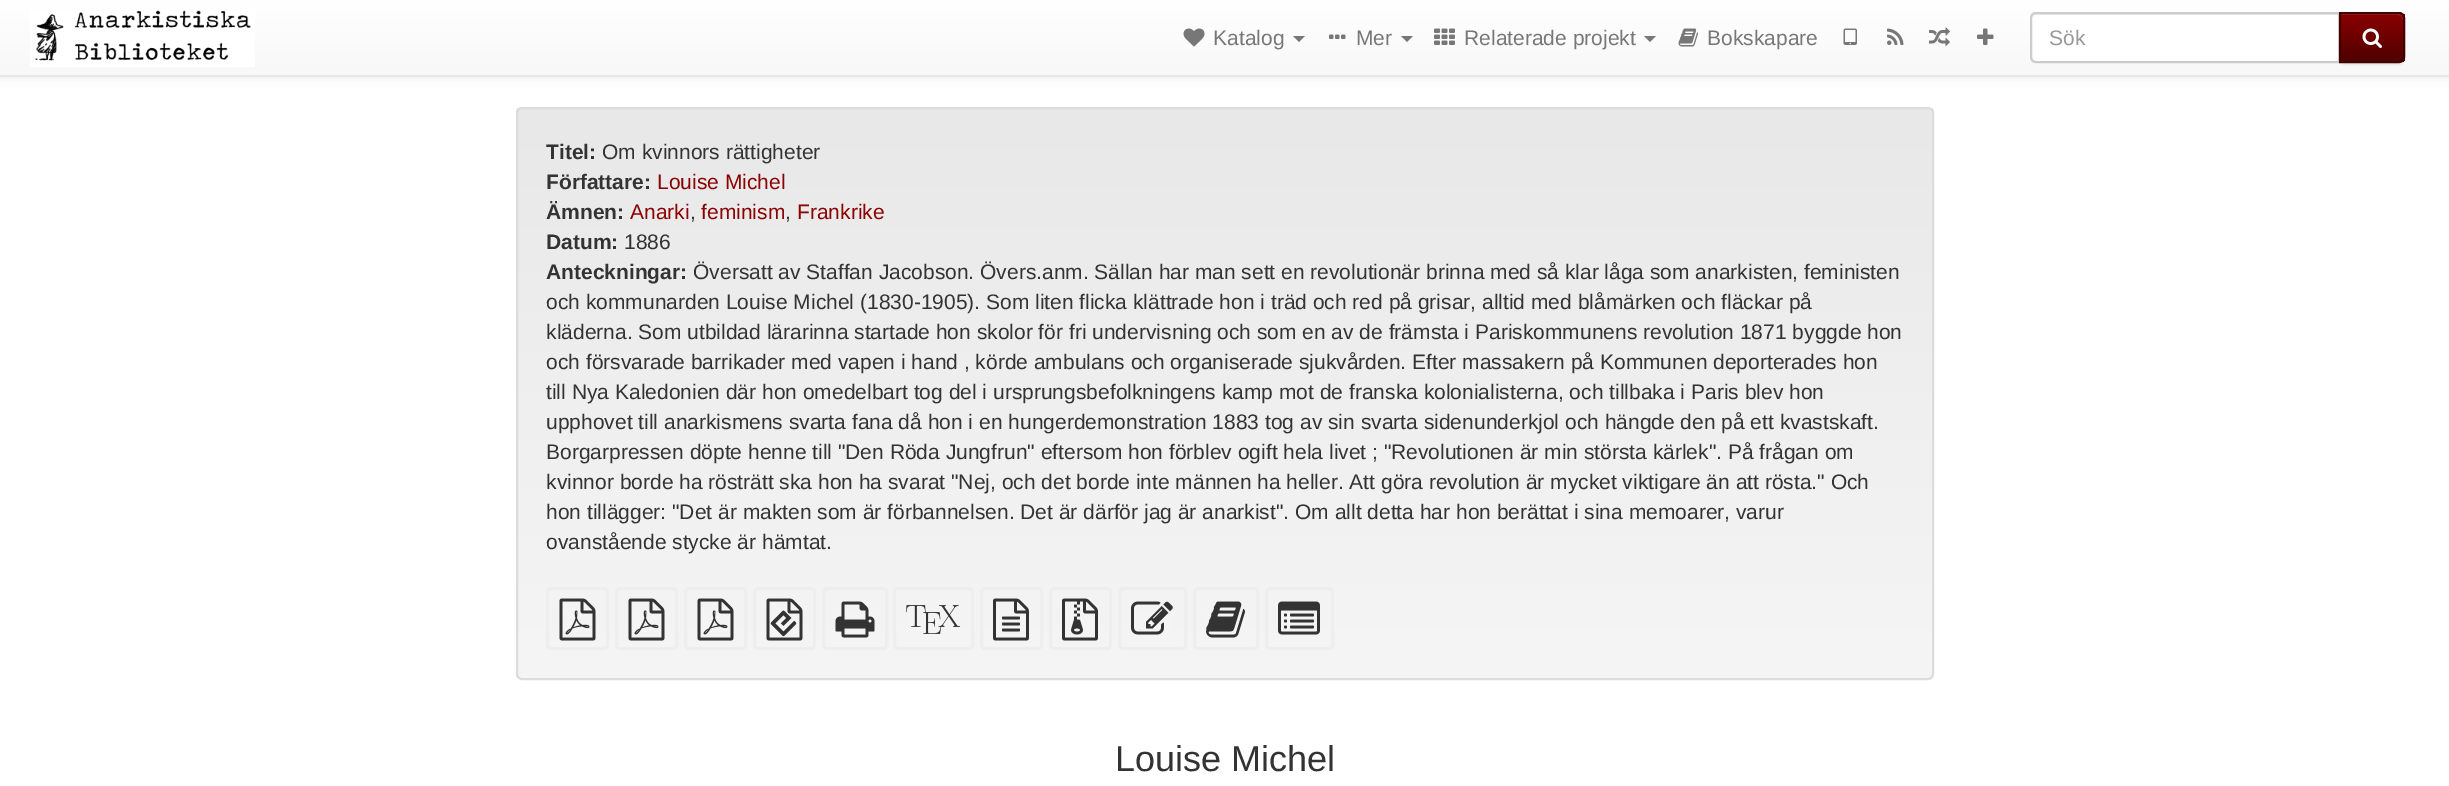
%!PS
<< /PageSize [2449 786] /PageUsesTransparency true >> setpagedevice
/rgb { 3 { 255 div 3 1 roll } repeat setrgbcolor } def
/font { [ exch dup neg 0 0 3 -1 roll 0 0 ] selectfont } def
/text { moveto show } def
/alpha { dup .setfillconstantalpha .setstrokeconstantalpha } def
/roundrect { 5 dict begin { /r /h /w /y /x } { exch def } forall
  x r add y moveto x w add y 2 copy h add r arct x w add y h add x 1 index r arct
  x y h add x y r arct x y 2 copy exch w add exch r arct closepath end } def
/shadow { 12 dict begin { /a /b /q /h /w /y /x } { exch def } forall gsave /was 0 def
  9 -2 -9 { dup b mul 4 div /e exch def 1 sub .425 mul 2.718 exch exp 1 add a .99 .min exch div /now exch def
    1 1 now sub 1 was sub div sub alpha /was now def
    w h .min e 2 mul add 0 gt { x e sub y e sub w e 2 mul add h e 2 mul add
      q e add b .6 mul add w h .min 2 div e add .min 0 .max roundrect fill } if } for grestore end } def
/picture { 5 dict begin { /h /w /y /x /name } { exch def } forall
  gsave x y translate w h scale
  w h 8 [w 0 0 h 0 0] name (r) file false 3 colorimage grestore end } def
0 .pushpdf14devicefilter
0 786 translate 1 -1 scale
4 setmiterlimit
255 255 255 rgb
0 0 2449 786 rectfill
0 0 0 rgb
0 2 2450 76 0 4 0.07 shadow
gsave 0 0 moveto 2449 0 rlineto 0 75 rlineto -2449 0 rlineto closepath clip newpath
<< /ShadingType 2 /ColorSpace /DeviceRGB /Coords [1225 0 1225 75] /Extend [true true] /Function << /FunctionType 2 /Domain [0 1] /C0 [1 1 1] /C1 [0.973 0.973 0.973] /N 1 >> >> shfill grestore
231 231 231 rgb
0 75 2449 2 rectfill
(img_01.rgb) 30 10 225 57 picture
(img_02.rgb) 1183 28 22 19 picture
119 119 119 rgb
1293 36 moveto 12 0 rlineto -6 6 rlineto closepath fill
(img_03.rgb) 1329 34 17 5 picture
1401 36 moveto 12 0 rlineto -6 6 rlineto closepath fill
(img_04.rgb) 1434 28 21 17 picture
1644 36 moveto 12 0 rlineto -6 6 rlineto closepath fill
(img_05.rgb) 1678 28 20 19 picture
(img_06.rgb) 1843 28 14 17 picture
(img_07.rgb) 1887 28 17 17 picture
(img_08.rgb) 1929 27 21 20 picture
(img_09.rgb) 1977 28 17 17 picture
255 255 255 rgb
2036 12 moveto 304 0 rlineto 0 51 rlineto -304 0 rlineto -3.5 0 -6 -2.5 -6 -6 rcurveto 0 -39 rlineto 0 -3.5 2.5 -6 6 -6 rcurveto closepath fill
236 236 236 rgb
2036 15 moveto 302 0 rlineto 0 47 rlineto 1 0 rlineto 0 -48 rlineto -303 0 rlineto -3 0 -5 3 -5 6 rcurveto 0 -3 2 -5 5 -5 rcurveto closepath fill
204 204 204 rgb
2 setlinewidth
2036 13 moveto 303 0 rlineto 0 49 rlineto -303 0 rlineto -3 0 -5 -2 -5 -5 rcurveto 0 -39 rlineto 0 -3 2 -5 5 -5 rcurveto closepath stroke
0 0 0 rgb
2339 14 66 51 6 1 0.07 shadow
gsave
2339 12 moveto 60 0 rlineto 3.5 0 6 2.5 6 6 rcurveto 0 39 rlineto 0 3.5 -2.5 6 -6 6 rcurveto -60 0 rlineto closepath clip newpath
gsave 2341 14 moveto 64 0 rlineto 0 48 rlineto -64 0 rlineto closepath clip newpath
<< /ShadingType 2 /ColorSpace /DeviceRGB /Coords [2372 13 2372 62] /Extend [true true] /Function << /FunctionType 2 /Domain [0 1] /C0 [0.545 0 0] /C1 [0.306 0 0] /N 1 >> >> shfill grestore
grestore
155 38 38 rgb
2340 15 moveto 58 0 rlineto 3 0 5 2 5 5 rcurveto 0 -1 rlineto 0 -3 -2 -5 -5 -5 rcurveto -58 0 rlineto closepath fill
68 0 0 rgb
2340 13 moveto 59 0 rlineto 3 0 5 2 5 5 rcurveto 0 39 rlineto 0 3 -2 5 -5 5 rcurveto -59 0 rlineto closepath stroke
(img_10.rgb) 2362 28 20 20 picture
gsave
516 107 1418 573 6 roundrect clip newpath
gsave 516 108 moveto 1418 0 rlineto 0 570 rlineto -1418 0 rlineto closepath clip newpath
<< /ShadingType 2 /ColorSpace /DeviceRGB /Coords [1225 108 1225 678] /Extend [true true] /Function << /FunctionType 2 /Domain [0 1] /C0 [0.91 0.91 0.91] /C1 [0.961 0.961 0.961] /N 1 >> >> shfill grestore
grestore
220 220 220 rgb
517 108 1416 571 5 roundrect stroke
238 238 238 rgb
3 setlinewidth
547.5 588.5 60 60 3.5 roundrect stroke
(img_11.rgb) 559 598 37 43 picture
616.5 588.5 60 60 3.5 roundrect stroke
(img_11.rgb) 628 598 37 43 picture
685.5 588.5 60 60 3.5 roundrect stroke
(img_11.rgb) 697 598 37 43 picture
754.5 588.5 60 60 3.5 roundrect stroke
(img_12.rgb) 766 598 37 43 picture
823.5 588.5 63 60 3.5 roundrect stroke
(img_13.rgb) 835 601 40 37 picture
894.5 588.5 78 60 3.5 roundrect stroke
(img_14.rgb) 906 605 54 29 picture
981.5 588.5 60 60 3.5 roundrect stroke
(img_15.rgb) 993 598 36 43 picture
1050.5 588.5 60 60 3.5 roundrect stroke
(img_16.rgb) 1062 598 36 43 picture
1119.5 588.5 66 60 3.5 roundrect stroke
(img_17.rgb) 1131 601 42 34 picture
1194.5 588.5 63 60 3.5 roundrect stroke
(img_18.rgb) 1206 601 39 37 picture
1266.5 588.5 66 60 3.5 roundrect stroke
(img_19.rgb) 1278 601 42 34 picture
/LiberationSans-Regular 21 font
119 119 119 rgb
(Katalog) 1213 45 text
(Mer) 1356 45 text
(Relaterade projekt) 1464 45 text
(Bokskapare) 1707 45 text
153 153 153 rgb
(Sök) 2049 45 text
/LiberationSans-Bold 21 font
51 51 51 rgb
(Titel:) 546 159 text
/LiberationSans-Regular 21 font
(Om kvinnors rättigheter) 602 159 text
/LiberationSans-Bold 21 font
(Författare:) 546 189 text
/LiberationSans-Regular 21 font
139 0 0 rgb
(Louise Michel) 657 189 text
/LiberationSans-Bold 21 font
51 51 51 rgb
(Ämnen:) 546 219 text
/LiberationSans-Regular 21 font
139 0 0 rgb
(Anarki) 630 219 text
51 51 51 rgb
(,) 690 219 text
139 0 0 rgb
(feminism) 701 219 text
51 51 51 rgb
(,) 785 219 text
139 0 0 rgb
(Frankrike) 797 219 text
/LiberationSans-Bold 21 font
51 51 51 rgb
(Datum:) 546 249 text
/LiberationSans-Regular 21 font
(1886) 624 249 text
/LiberationSans-Bold 21 font
(Anteckningar:) 546 279 text
/LiberationSans-Regular 21 font
(Översatt av Staffan Jacobson. Övers.anm. Sällan har man sett en revolutionär brinna med så klar låga som anarkisten, feministen) 693 279 text
(och kommunarden Louise Michel \(1830-1905\). Som liten flicka klättrade hon i träd och red på grisar, alltid med blåmärken och fläckar på) 546 309 text
(kläderna. Som utbildad lärarinna startade hon skolor för fri undervisning och som en av de främsta i Pariskommunens revolution 1871 byggde hon) 546 339 text
(och försvarade barrikader med vapen i hand , körde ambulans och organiserade sjukvården. Efter massakern på Kommunen deporterades hon) 546 369 text
(till Nya Kaledonien där hon omedelbart tog del i ursprungsbefolkningens kamp mot de franska kolonialisterna, och tillbaka i Paris blev hon) 546 399 text
(upphovet till anarkismens svarta fana då hon i en hungerdemonstration 1883 tog av sin svarta sidenunderkjol och hängde den på ett kvastskaft.) 546 429 text
(Borgarpressen döpte henne till "Den Röda Jungfrun" eftersom hon förblev ogift hela livet ; "Revolutionen är min största kärlek". På frågan om) 546 459 text
(kvinnor borde ha rösträtt ska hon ha svarat "Nej, och det borde inte männen ha heller. Att göra revolution är mycket viktigare än att rösta." Och) 546 489 text
(hon tillägger: "Det är makten som är förbannelsen. Det är därför jag är anarkist". Om allt detta har hon berättat i sina memoarer, varur) 546 519 text
(ovanstående stycke är hämtat.) 546 549 text
/LiberationSans-Regular 36 font
(Louise Michel) 1115 771 text
.poppdf14devicefilter showpage
